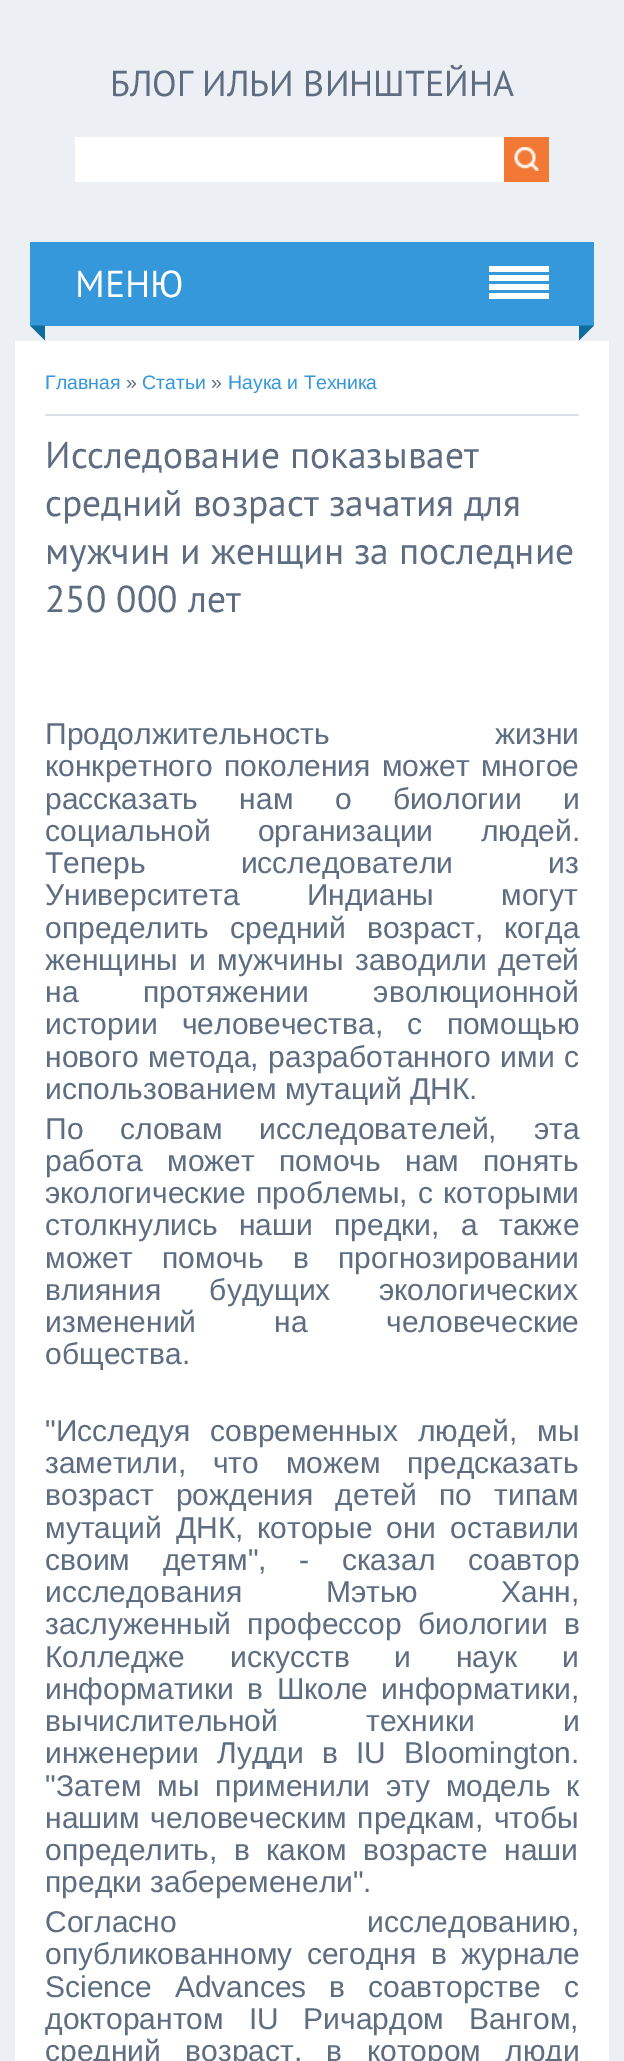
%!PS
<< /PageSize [624 2061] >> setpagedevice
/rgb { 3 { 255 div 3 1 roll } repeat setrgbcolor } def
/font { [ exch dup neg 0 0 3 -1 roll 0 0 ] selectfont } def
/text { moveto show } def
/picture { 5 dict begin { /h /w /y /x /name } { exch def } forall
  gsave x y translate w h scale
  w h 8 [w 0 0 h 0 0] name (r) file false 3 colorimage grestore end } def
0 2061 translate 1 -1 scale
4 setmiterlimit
236 239 243 rgb
0 0 624 2061 rectfill
255 255 255 rgb
75 137 429 45 rectfill
242 121 53 rgb
504 137 45 45 rectfill
(img_01.rgb) 514 147 25 24 picture
52 152 219 rgb
30 242 564 84 rectfill
255 255 255 rgb
489 266 60 6 rectfill
489 275 60 6 rectfill
489 284 60 6 rectfill
489 293 60 6 rectfill
15 109 158 rgb
30 325.5 moveto 15 0 rlineto 0 15 rlineto closepath fill
579 325.5 moveto 15 0 rlineto -15 15 rlineto closepath fill
255 255 255 rgb
15 341 594 1720 rectfill
219 225 232 rgb
45 414 534 2 rectfill
/PTSans-Regular 36 font
94 109 129 rgb
(БЛОГ ИЛЬИ ВИНШТЕЙНА) 110 96 text
/PTSans-Regular 37.5 font
255 255 255 rgb
(МЕНЮ) 75 297 text
/LiberationSans-Regular 19.5 font
52 152 219 rgb
(Главная) 45 389 text
94 109 129 rgb
(») 126 389 text
52 152 219 rgb
(Статьи) 142 389 text
94 109 129 rgb
(») 211 389 text
52 152 219 rgb
(Наука и Техника) 228 389 text
/PTSans-Regular 37.5 font
94 109 129 rgb
(Исследование показывает) 45 468 text
(средний возраст зачатия для) 45 516 text
(мужчин и женщин за последние) 45 564 text
(250 000 лет) 45 612 text
/LiberationSans-Regular 30 font
45 744 moveto 157 0 32 (Продолжительность жизни) widthshow
45 776 moveto 3 0 32 (конкретного поколения может многое) widthshow
45 809 moveto 33 0 32 (рассказать нам о биологии и) widthshow
45 841 moveto 39 0 32 (социальной организации людей.) widthshow
45 873 moveto 87 0 32 (Теперь исследователи из) widthshow
45 905 moveto 59 0 32 (Университета Индианы могут) widthshow
45 938 moveto 12.5 0 32 (определить средний возраст, когда) widthshow
45 970 moveto 3 0 32 (женщины и мужчины заводили детей) widthshow
45 1002 moveto 56 0 32 (на протяжении эволюционной) widthshow
45 1034 moveto 16 0 32 (истории человечества, с помощью) widthshow
45 1067 moveto 1.5 0 32 (нового метода, разработанного ими с) widthshow
(использованием мутаций ДНК.) 45 1099 text
45 1139 moveto 28.5 0 32 (По словам исследователей, эта) widthshow
45 1171 moveto 16 0 32 (работа может помочь нам понять) widthshow
45 1203 moveto 2 0 32 (экологические проблемы, с которыми) widthshow
45 1235 moveto 13 0 32 (столкнулись наши предки, а также) widthshow
45 1268 moveto 21 0 32 (может помочь в прогнозировании) widthshow
45 1300 moveto 40 0 32 (влияния будущих экологических) widthshow
45 1332 moveto 70 0 32 (изменений на человеческие) widthshow
(общества.) 45 1364 text
45 1441 moveto 11.5 0 32 ("Исследуя современных людей, мы) widthshow
45 1473 moveto 18.5 0 32 (заметили, что можем предсказать) widthshow
45 1505 moveto 14 0 32 (возраст рождения детей по типам) widthshow
45 1538 moveto 5.5 0 32 (мутаций ДНК, которые они оставили) widthshow
45 1570 moveto 24.5 0 32 (своим детям", - сказал соавтор) widthshow
45 1602 moveto 75 0 32 (исследования Мэтью Ханн,) widthshow
45 1634 moveto 8 0 32 (заслуженный профессор биологии в) widthshow
45 1667 moveto 36.5 0 32 (Колледже искусств и наук и) widthshow
45 1699 moveto 5 0 32 (информатики в Школе информатики,) widthshow
45 1731 moveto 80 0 32 (вычислительной техники и) widthshow
45 1763 moveto 10 0 32 (инженерии Лудди в IU Bloomington.) widthshow
45 1796 moveto 7.5 0 32 ("Затем мы применили эту модель к) widthshow
45 1828 moveto 2 0 32 (нашим человеческим предкам, чтобы) widthshow
45 1860 moveto 8 0 32 (определить, в каком возрасте наши) widthshow
(предки забеременели".) 45 1892 text
45 1932 moveto 182 0 32 (Согласно исследованию,) widthshow
45 1964 moveto 6 0 32 (опубликованному сегодня в журнале) widthshow
45 1997 moveto 14.5 0 32 (Science Advances в соавторстве с) widthshow
45 2029 moveto 16.5 0 32 (докторантом IU Ричардом Вангом,) widthshow
45 2061 moveto 16 0 32 (средний возраст, в котором люди) widthshow
showpage
